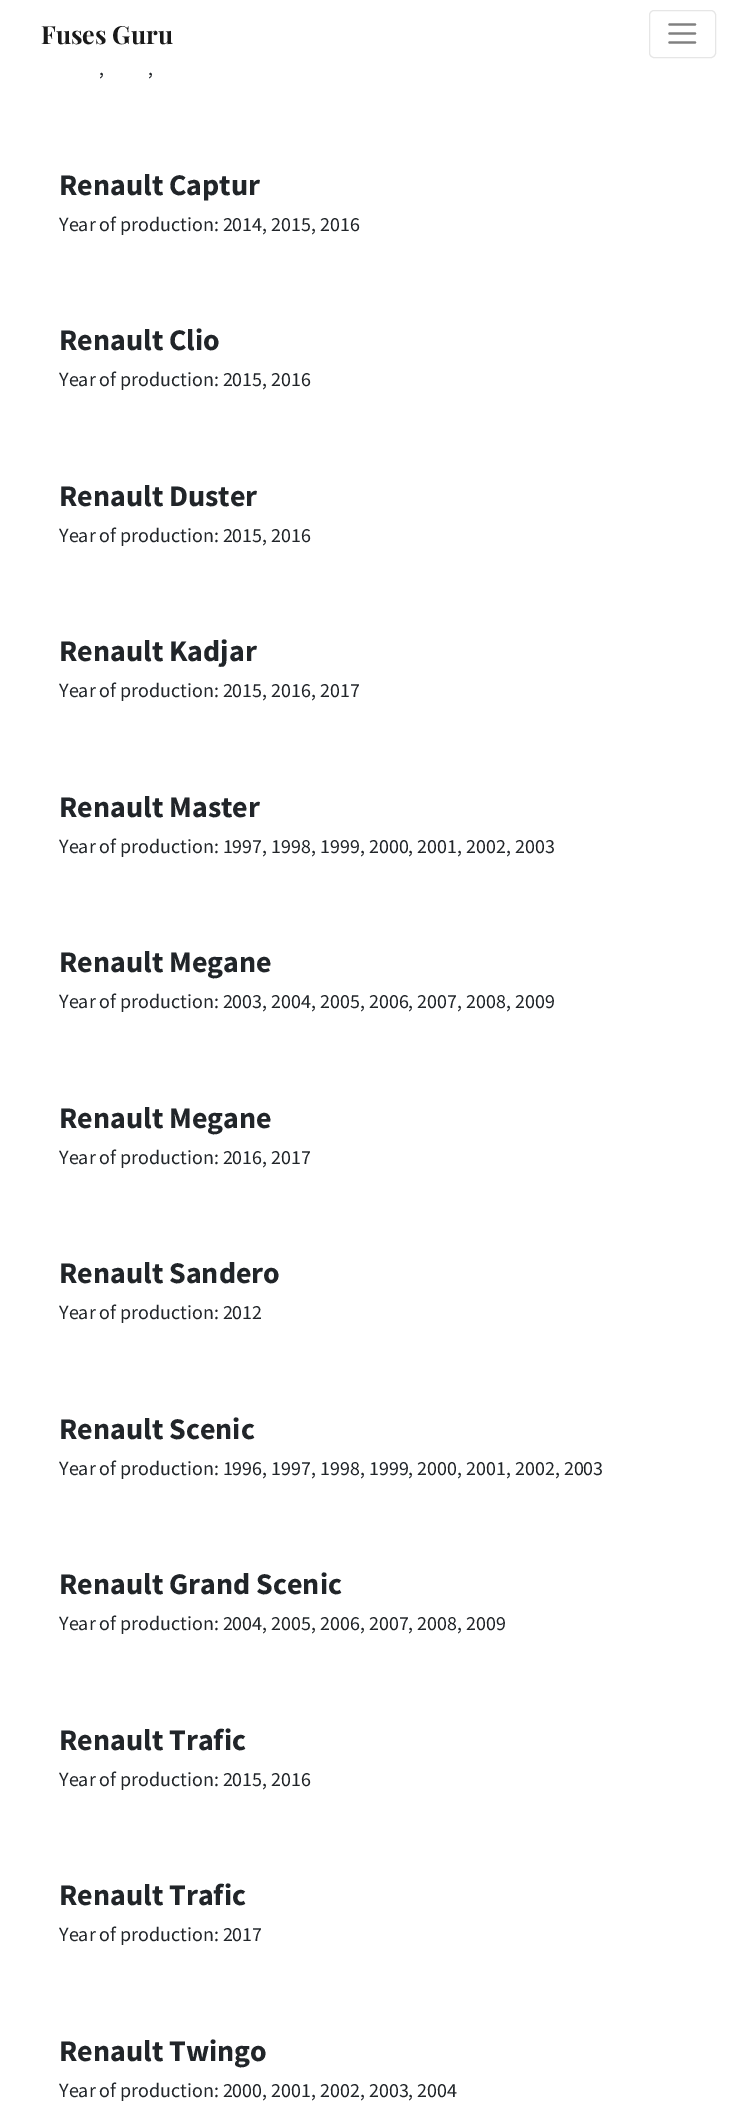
%!PS
<< /PageSize [756 2114] >> setpagedevice
/rgb { 3 { 255 div 3 1 roll } repeat setrgbcolor } def
/font { [ exch dup neg 0 0 3 -1 roll 0 0 ] selectfont } def
/text { moveto show } def
/roundrect { 5 dict begin { /r /h /w /y /x } { exch def } forall
  x r add y moveto x w add y 2 copy h add r arct x w add y h add x 1 index r arct
  x y h add x y r arct x y 2 copy exch w add exch r arct closepath end } def
0 2114 translate 1 -1 scale
4 setmiterlimit
255 255 255 rgb
0 0 756 2114 rectfill
230 230 230 rgb
649.5 10.5 66 47 4.5 roundrect stroke
128 128 128 rgb
2.3 setlinewidth
1 setlinecap
669.5 24.5 moveto 25.5 0 rlineto 669.5 33.5 moveto 25.5 0 rlineto 669.5 42.5 moveto 25.5 0 rlineto stroke
/PlayfairDisplay-Bold 25 font
26 26 26 rgb
(Fuses Guru) 41 44 text
/SourceSansPro-Regular 20 font
33 37 41 rgb
(,) 99 75 text
(,) 148 75 text
/SourceSansPro-Bold 30 font
(Renault Captur) 59 195 text
/SourceSansPro-Regular 20 font
(Year of production: 2014, 2015, 2016) 59 231 text
/SourceSansPro-Bold 30 font
(Renault Clio) 59 350 text
/SourceSansPro-Regular 20 font
(Year of production: 2015, 2016) 59 386 text
/SourceSansPro-Bold 30 font
(Renault Duster) 59 506 text
/SourceSansPro-Regular 20 font
(Year of production: 2015, 2016) 59 542 text
/SourceSansPro-Bold 30 font
(Renault Kadjar) 59 661 text
/SourceSansPro-Regular 20 font
(Year of production: 2015, 2016, 2017) 59 697 text
/SourceSansPro-Bold 30 font
(Renault Master) 59 817 text
/SourceSansPro-Regular 20 font
(Year of production: 1997, 1998, 1999, 2000, 2001, 2002, 2003) 59 853 text
/SourceSansPro-Bold 30 font
(Renault Megane) 59 972 text
/SourceSansPro-Regular 20 font
(Year of production: 2003, 2004, 2005, 2006, 2007, 2008, 2009) 59 1008 text
/SourceSansPro-Bold 30 font
(Renault Megane) 59 1128 text
/SourceSansPro-Regular 20 font
(Year of production: 2016, 2017) 59 1164 text
/SourceSansPro-Bold 30 font
(Renault Sandero) 59 1283 text
/SourceSansPro-Regular 20 font
(Year of production: 2012) 59 1319 text
/SourceSansPro-Bold 30 font
(Renault Scenic) 59 1439 text
/SourceSansPro-Regular 20 font
(Year of production: 1996, 1997, 1998, 1999, 2000, 2001, 2002, 2003) 59 1475 text
/SourceSansPro-Bold 30 font
(Renault Grand Scenic) 59 1594 text
/SourceSansPro-Regular 20 font
(Year of production: 2004, 2005, 2006, 2007, 2008, 2009) 59 1630 text
/SourceSansPro-Bold 30 font
(Renault Trafic) 59 1750 text
/SourceSansPro-Regular 20 font
(Year of production: 2015, 2016) 59 1786 text
/SourceSansPro-Bold 30 font
(Renault Trafic) 59 1905 text
/SourceSansPro-Regular 20 font
(Year of production: 2017) 59 1941 text
/SourceSansPro-Bold 30 font
(Renault Twingo) 59 2061 text
/SourceSansPro-Regular 20 font
(Year of production: 2000, 2001, 2002, 2003, 2004) 59 2097 text
showpage
